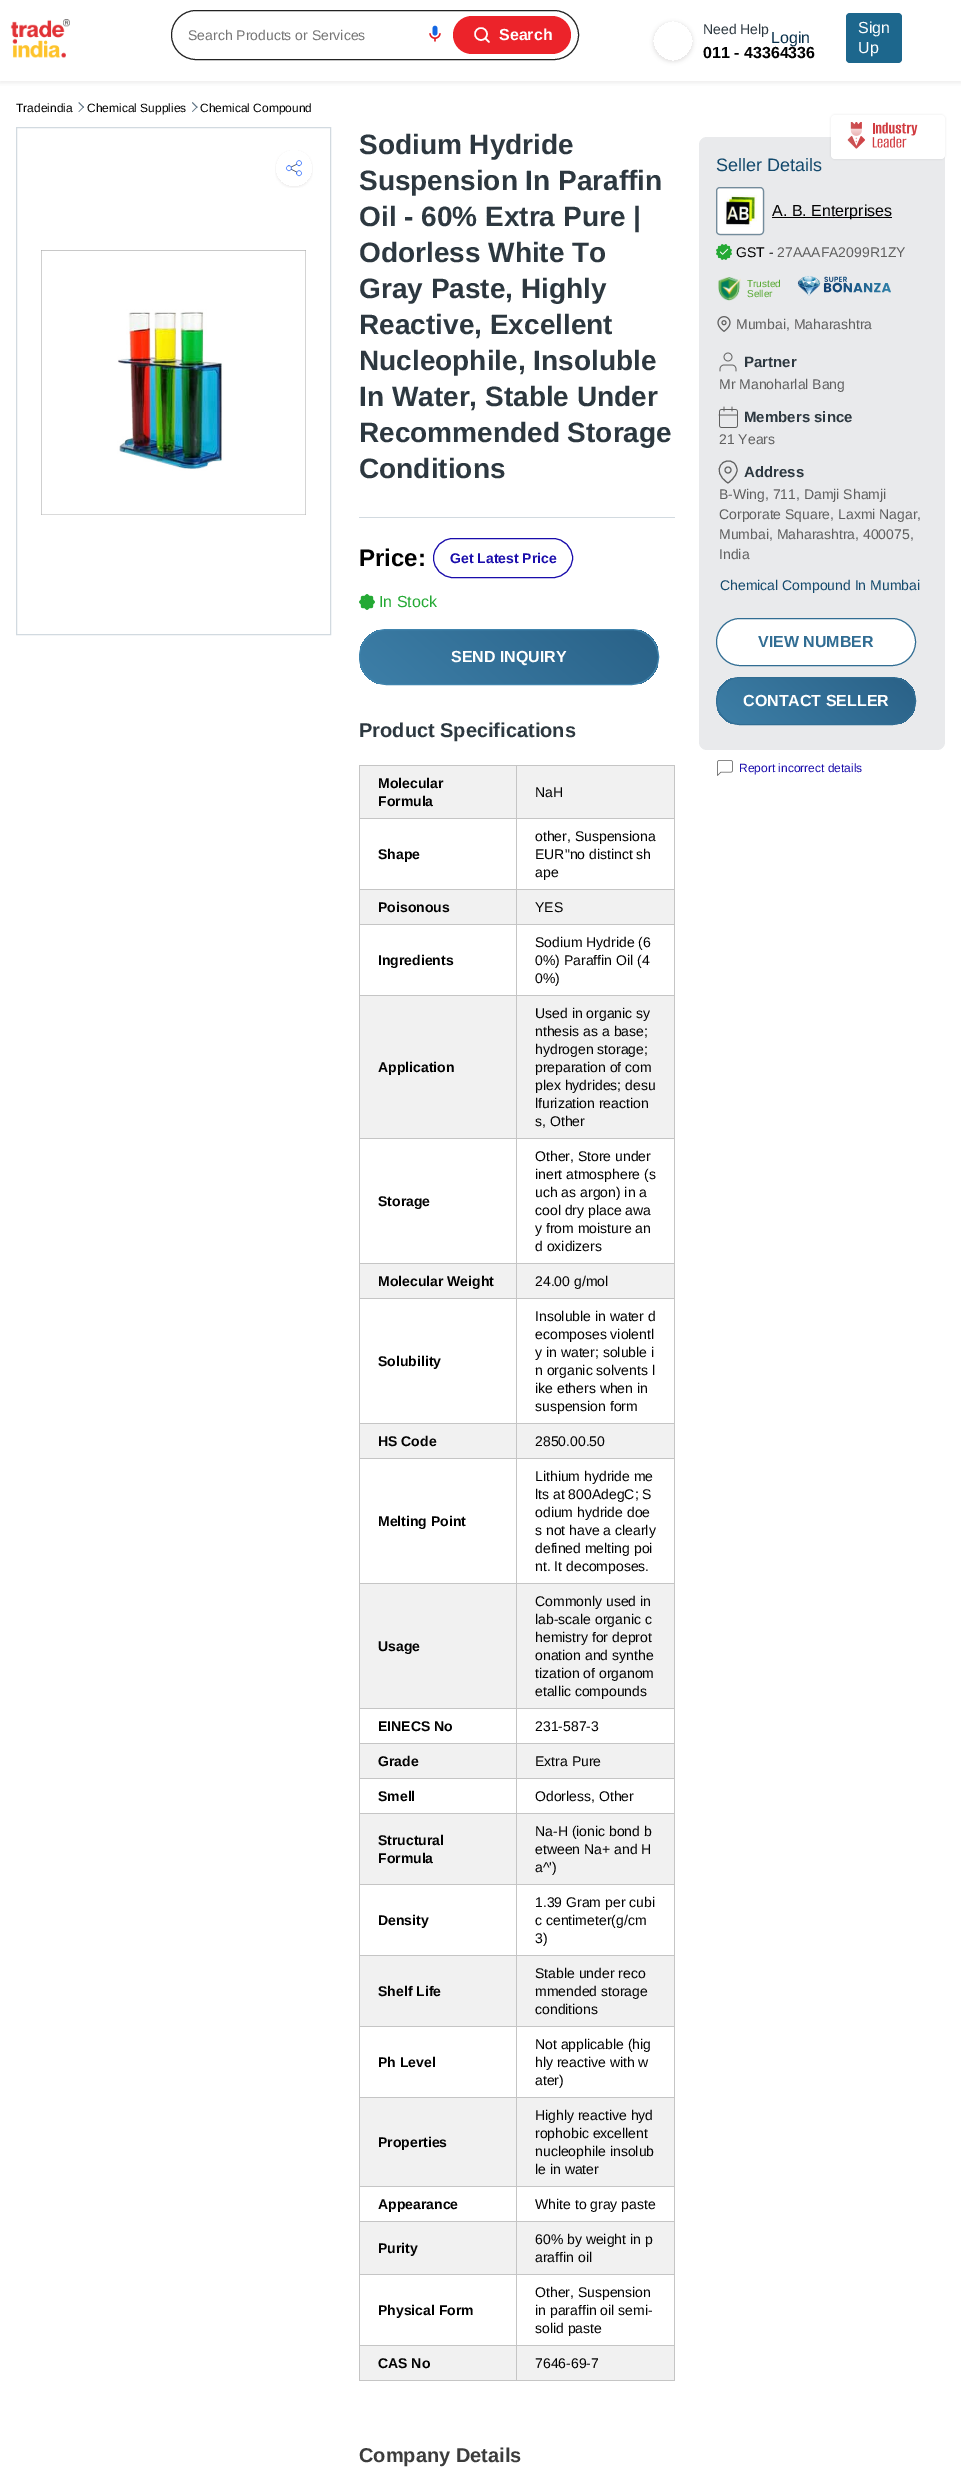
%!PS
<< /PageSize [961 2472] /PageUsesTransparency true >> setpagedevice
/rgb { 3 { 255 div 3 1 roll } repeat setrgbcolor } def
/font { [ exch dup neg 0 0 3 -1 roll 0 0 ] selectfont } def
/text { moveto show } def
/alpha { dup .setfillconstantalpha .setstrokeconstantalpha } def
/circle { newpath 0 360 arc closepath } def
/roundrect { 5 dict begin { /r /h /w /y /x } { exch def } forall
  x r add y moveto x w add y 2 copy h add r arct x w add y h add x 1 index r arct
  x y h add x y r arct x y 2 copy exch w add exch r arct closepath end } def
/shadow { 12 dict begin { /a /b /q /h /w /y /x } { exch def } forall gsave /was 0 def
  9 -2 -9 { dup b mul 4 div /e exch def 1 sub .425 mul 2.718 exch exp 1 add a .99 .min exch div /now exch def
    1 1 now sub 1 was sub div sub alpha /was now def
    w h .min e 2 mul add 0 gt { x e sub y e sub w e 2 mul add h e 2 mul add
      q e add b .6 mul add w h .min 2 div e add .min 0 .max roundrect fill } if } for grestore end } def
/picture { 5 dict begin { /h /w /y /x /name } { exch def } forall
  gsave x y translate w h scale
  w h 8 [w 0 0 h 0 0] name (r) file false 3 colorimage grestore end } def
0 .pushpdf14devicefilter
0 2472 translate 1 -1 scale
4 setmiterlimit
255 255 255 rgb
0 0 961 2472 rectfill
gsave
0 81 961 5 rectclip
187 186 186 rgb
0 2 961 81 0 2 0.25 shadow
grestore
(img_01.rgb) 10 19 60 40 picture
34 34 34 rgb
171.5 10.5 407 49 24.5 roundrect stroke
(img_02.rgb) 429 25 12 17 picture
236 35 42 rgb
453 16 118 38 19 roundrect fill
255 255 255 rgb
1.5 setlinewidth
481 34 6 circle stroke
1 setlinecap
1 setlinejoin
489 42 moveto -3.5 -3.5 rlineto stroke
gsave
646 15 moveto 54 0 rlineto 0 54 rlineto -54 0 rlineto closepath 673 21 moveto 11 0 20 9 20 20 rcurveto 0 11 -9 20 -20 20 rcurveto -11 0 -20 -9 -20 -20 rcurveto 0 -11 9 -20 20 -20 rcurveto closepath eoclip newpath
147 146 146 rgb
653 22 40 40 20 2 0.25 shadow
grestore
29 103 141 rgb
846 13 56 50 4 roundrect fill
94 115 132 rgb
78.5 103 moveto 0.5 -1 rlineto 5 5 rlineto -0.5 1 rlineto closepath fill
78.5 111.5 moveto 5 -5 rlineto 0.5 0.5 rlineto -5 5 rlineto closepath fill
192 103 moveto 0.5 -1 rlineto 5 5 rlineto -0.5 1 rlineto closepath fill
192 111.5 moveto 5 -5 rlineto 0.5 0.5 rlineto -5 5 rlineto closepath fill
210 218 224 rgb
1 setlinewidth
0 setlinecap
0 setlinejoin
16.5 127.5 314 507 rectstroke
(img_03.rgb) 275 150 38 38 picture
(img_04.rgb) 41 250 265 265 picture
359 517 316 1 rectfill
26 13 171 rgb
433.5 538.5 139 39 19.5 roundrect stroke
(img_05.rgb) 359 594 16 16 picture
gsave
359 629 300 56 28 roundrect clip newpath
gsave 360 630 moveto 298 0 rlineto 0 54 rlineto -298 0 rlineto closepath clip newpath
<< /ShadingType 2 /ColorSpace /DeviceRGB /Coords [409 775 612 536] /Extend [true true] /Function << /FunctionType 2 /Domain [0 1] /C0 [0.251 0.518 0.678] /C1 [0.149 0.361 0.506] /N 1 >> >> shfill grestore
grestore
64 132 173 rgb
359.5 629.5 299 55 27.5 roundrect stroke
241 241 241 rgb
360 766 314 52 rectfill
197 197 197 rgb
516 765 159 1 rectfill
516 818 159 1 rectfill
516 889 159 1 rectfill
241 241 241 rgb
360 890 314 34 rectfill
197 197 197 rgb
516 924 159 1 rectfill
516 995 159 1 rectfill
241 241 241 rgb
360 996 314 142 rectfill
197 197 197 rgb
516 1138 159 1 rectfill
516 1263 159 1 rectfill
241 241 241 rgb
360 1264 314 34 rectfill
197 197 197 rgb
516 1298 159 1 rectfill
516 1423 159 1 rectfill
241 241 241 rgb
360 1424 314 34 rectfill
197 197 197 rgb
516 1458 159 1 rectfill
516 1583 159 1 rectfill
241 241 241 rgb
360 1584 314 124 rectfill
197 197 197 rgb
516 1708 159 1 rectfill
516 1743 159 1 rectfill
241 241 241 rgb
360 1744 314 34 rectfill
197 197 197 rgb
516 1778 159 1 rectfill
516 1813 159 1 rectfill
241 241 241 rgb
360 1814 314 70 rectfill
197 197 197 rgb
516 1884 159 1 rectfill
516 1955 159 1 rectfill
241 241 241 rgb
360 1956 314 70 rectfill
197 197 197 rgb
516 2026 159 1 rectfill
516 2097 159 1 rectfill
241 241 241 rgb
360 2098 314 88 rectfill
197 197 197 rgb
516 2186 159 1 rectfill
516 2221 159 1 rectfill
241 241 241 rgb
360 2222 314 52 rectfill
197 197 197 rgb
516 2274 159 1 rectfill
516 2345 159 1 rectfill
241 241 241 rgb
360 2346 314 34 rectfill
197 197 197 rgb
674 2345 1 36 rectfill
516 2380 159 1 rectfill
516 2345 1 36 rectfill
359 2345 158 1 rectfill
516 2274 1 72 rectfill
359 2274 158 1 rectfill
516 2221 1 54 rectfill
359 2221 158 1 rectfill
516 2186 1 36 rectfill
359 2186 158 1 rectfill
516 2097 1 90 rectfill
359 2097 158 1 rectfill
516 2026 1 72 rectfill
359 2026 158 1 rectfill
516 1955 1 72 rectfill
359 1955 158 1 rectfill
516 1884 1 72 rectfill
359 1884 158 1 rectfill
516 1813 1 72 rectfill
359 1813 158 1 rectfill
516 1778 1 36 rectfill
359 1778 158 1 rectfill
516 1743 1 36 rectfill
359 1743 158 1 rectfill
516 1708 1 36 rectfill
359 1708 158 1 rectfill
516 1583 1 126 rectfill
359 1583 158 1 rectfill
516 1458 1 126 rectfill
359 1458 158 1 rectfill
516 1423 1 36 rectfill
359 1423 158 1 rectfill
516 1298 1 126 rectfill
359 1298 158 1 rectfill
516 1263 1 36 rectfill
359 1263 158 1 rectfill
516 1138 1 126 rectfill
359 1138 158 1 rectfill
516 995 1 144 rectfill
359 995 158 1 rectfill
516 924 1 72 rectfill
359 924 158 1 rectfill
516 889 1 36 rectfill
359 889 158 1 rectfill
516 818 1 72 rectfill
359 818 158 1 rectfill
516 765 1 54 rectfill
359 765 158 1 rectfill
359 2380 158 1 rectfill
359 2345 1 36 rectfill
359 2274 1 72 rectfill
359 2221 1 54 rectfill
359 2186 1 36 rectfill
359 2097 1 90 rectfill
359 2026 1 72 rectfill
359 1955 1 72 rectfill
359 1884 1 72 rectfill
359 1813 1 72 rectfill
359 1778 1 36 rectfill
359 1743 1 36 rectfill
359 1708 1 36 rectfill
359 1583 1 126 rectfill
359 1458 1 126 rectfill
359 1423 1 36 rectfill
359 1298 1 126 rectfill
359 1263 1 36 rectfill
359 1138 1 126 rectfill
359 995 1 144 rectfill
359 924 1 72 rectfill
359 889 1 36 rectfill
359 818 1 72 rectfill
359 765 1 54 rectfill
674 2274 1 72 rectfill
674 2221 1 54 rectfill
674 2186 1 36 rectfill
674 2097 1 90 rectfill
674 2026 1 72 rectfill
674 1955 1 72 rectfill
674 1884 1 72 rectfill
674 1813 1 72 rectfill
674 1778 1 36 rectfill
674 1743 1 36 rectfill
674 1708 1 36 rectfill
674 1583 1 126 rectfill
674 1458 1 126 rectfill
674 1423 1 36 rectfill
674 1298 1 126 rectfill
674 1263 1 36 rectfill
674 1138 1 126 rectfill
674 995 1 144 rectfill
674 924 1 72 rectfill
674 889 1 36 rectfill
674 818 1 72 rectfill
674 765 1 54 rectfill
233 234 236 rgb
699 137 246 613 8 roundrect fill
0 0 0 rgb
831 115 114 44 4 1 0.1 shadow
255 255 255 rgb
831 115 114 44 4 roundrect fill
(img_06.rgb) 847 122 71 27 picture
115 140 156 rgb
716.5 187.5 47 47 3.5 roundrect stroke
(img_07.rgb) 718 189 44 44 picture
0 0 0 rgb
772 217 120 1 rectfill
(img_08.rgb) 716 244 16 16 picture
(img_09.rgb) 718 277 23 24 picture
(img_10.rgb) 797 276 94 20 picture
(img_11.rgb) 717 316 14 16 picture
(img_12.rgb) 719 352 18 20 picture
(img_13.rgb) 718 406 20 22 picture
95 95 95 rgb
1 setlinecap
1 setlinejoin
737 470 moveto 0 7 -9 13 -9 13 rcurveto -19 -12.5 -3 -28.5 6.5 -19.5 rcurveto 1.5 2 2.5 4 2.5 6.5 rcurveto closepath stroke
0 setlinecap
0 setlinejoin
728 470 3 circle stroke
255 255 255 rgb
716.5 618.5 199 47 23.5 roundrect gsave fill grestore
49 109 147 rgb
stroke
gsave
716 677 200 48 24 roundrect clip newpath
gsave 717 678 moveto 198 0 rlineto 0 46 rlineto -198 0 rlineto closepath clip newpath
<< /ShadingType 2 /ColorSpace /DeviceRGB /Coords [746 784 888 616] /Extend [true true] /Function << /FunctionType 2 /Domain [0 1] /C0 [0.251 0.518 0.678] /C1 [0.149 0.361 0.506] /N 1 >> >> shfill grestore
grestore
716.5 677.5 199 47 23.5 roundrect stroke
(img_14.rgb) 717 760 16 16 picture
/LiberationSans-Regular 14 font
117 117 117 rgb
(Search Products or Services) 188 40 text
/LiberationSans-Bold 16 font
255 255 255 rgb
(Search) 499 40 text
/LiberationSans-Regular 14 font
45 56 64 rgb
(Need Help) 703 34 text
/LiberationSans-Bold 16 font
1 1 1 rgb
(011 - 43364336) 703 58 text
/LiberationSans-Regular 16 font
8 47 74 rgb
(Login) 771 43 text
255 255 255 rgb
(Sign) 858 33 text
(Up) 858 53 text
/LiberationSans-Regular 12 font
1 1 1 rgb
(Tradeindia) 16 112 text
(Chemical Supplies) 87 112 text
(Chemical Compound) 200 112 text
/LiberationSans-Bold 28 font
45 56 64 rgb
(Sodium Hydride) 359 154 text
(Suspension In Paraffin) 359 190 text
(Oil - 60% Extra Pure |) 359 226 text
(Odorless White To) 359 262 text
(Gray Paste, Highly) 359 298 text
(Reactive, Excellent) 359 334 text
(Nucleophile, Insoluble) 359 370 text
(In Water, Stable Under) 359 406 text
(Recommended Storage) 359 442 text
(Conditions) 359 478 text
/LiberationSans-Bold 24 font
1 1 1 rgb
(Price:) 359 566 text
/LiberationSans-Bold 14 font
26 13 171 rgb
(Get Latest Price) 450 563 text
/LiberationSans-Regular 16 font
36 169 52 rgb
(In Stock) 379 607 text
/LiberationSans-Bold 16 font
255 255 255 rgb
(SEND INQUIRY) 451 662 text
/LiberationSans-Bold 20 font
45 56 64 rgb
(Product Specifications) 359 737 text
/LiberationSans-Bold 14 font
1 1 1 rgb
(Molecular) 378 788 text
(Formula) 378 806 text
/LiberationSans-Regular 14 font
(NaH) 535 797 text
/LiberationSans-Bold 14 font
(Shape) 378 859 text
/LiberationSans-Regular 14 font
(other, Suspensiona) 535 841 text
(EUR"no distinct sh) 535 859 text
(ape) 535 877 text
/LiberationSans-Bold 14 font
(Poisonous) 378 912 text
/LiberationSans-Regular 14 font
(YES) 535 912 text
/LiberationSans-Bold 14 font
(Ingredients) 378 965 text
/LiberationSans-Regular 14 font
(Sodium Hydride \(6) 535 947 text
(0%\) Paraffin Oil \(4) 535 965 text
(0%\)) 535 983 text
/LiberationSans-Bold 14 font
(Application) 378 1072 text
/LiberationSans-Regular 14 font
(Used in organic sy) 535 1018 text
(nthesis as a base;) 535 1036 text
(hydrogen storage;) 535 1054 text
(preparation of com) 535 1072 text
(plex hydrides; desu) 535 1090 text
(lfurization reaction) 535 1108 text
(s, Other) 535 1126 text
/LiberationSans-Bold 14 font
(Storage) 378 1206 text
/LiberationSans-Regular 14 font
(Other, Store under) 535 1161 text
(inert atmosphere \(s) 535 1179 text
(uch as argon\) in a) 535 1197 text
(cool dry place awa) 535 1215 text
(y from moisture an) 535 1233 text
(d oxidizers) 535 1251 text
/LiberationSans-Bold 14 font
(Molecular Weight) 378 1286 text
/LiberationSans-Regular 14 font
(24.00 g/mol) 535 1286 text
/LiberationSans-Bold 14 font
(Solubility) 378 1366 text
/LiberationSans-Regular 14 font
(Insoluble in water d) 535 1321 text
(ecomposes violentl) 535 1339 text
(y in water; soluble i) 535 1357 text
(n organic solvents l) 535 1375 text
(ike ethers when in) 535 1393 text
(suspension form) 535 1411 text
/LiberationSans-Bold 14 font
(HS Code) 378 1446 text
/LiberationSans-Regular 14 font
(2850.00.50) 535 1446 text
/LiberationSans-Bold 14 font
(Melting Point) 378 1526 text
/LiberationSans-Regular 14 font
(Lithium hydride me) 535 1481 text
(lts at 800AdegC; S) 535 1499 text
(odium hydride doe) 535 1517 text
(s not have a clearly) 535 1535 text
(defined melting poi) 535 1553 text
(nt. It decomposes.) 535 1571 text
/LiberationSans-Bold 14 font
(Usage) 378 1651 text
/LiberationSans-Regular 14 font
(Commonly used in) 535 1606 text
(lab-scale organic c) 535 1624 text
(hemistry for deprot) 535 1642 text
(onation and synthe) 535 1660 text
(tization of organom) 535 1678 text
(etallic compounds) 535 1696 text
/LiberationSans-Bold 14 font
(EINECS No) 378 1731 text
/LiberationSans-Regular 14 font
(231-587-3) 535 1731 text
/LiberationSans-Bold 14 font
(Grade) 378 1766 text
/LiberationSans-Regular 14 font
(Extra Pure) 535 1766 text
/LiberationSans-Bold 14 font
(Smell) 378 1801 text
/LiberationSans-Regular 14 font
(Odorless, Other) 535 1801 text
/LiberationSans-Bold 14 font
(Structural) 378 1845 text
(Formula) 378 1863 text
/LiberationSans-Regular 14 font
(Na-H \(ionic bond b) 535 1836 text
(etween Na+ and H) 535 1854 text
(a^'\)) 535 1872 text
/LiberationSans-Bold 14 font
(Density) 378 1925 text
/LiberationSans-Regular 14 font
(1.39 Gram per cubi) 535 1907 text
(c centimeter\(g/cm) 535 1925 text
(3\)) 535 1943 text
/LiberationSans-Bold 14 font
(Shelf Life) 378 1996 text
/LiberationSans-Regular 14 font
(Stable under reco) 535 1978 text
(mmended storage) 535 1996 text
(conditions) 535 2014 text
/LiberationSans-Bold 14 font
(Ph Level) 378 2067 text
/LiberationSans-Regular 14 font
(Not applicable \(hig) 535 2049 text
(hly reactive with w) 535 2067 text
(ater\)) 535 2085 text
/LiberationSans-Bold 14 font
(Properties) 378 2147 text
/LiberationSans-Regular 14 font
(Highly reactive hyd) 535 2120 text
(rophobic excellent) 535 2138 text
(nucleophile insolub) 535 2156 text
(le in water) 535 2174 text
/LiberationSans-Bold 14 font
(Appearance) 378 2209 text
/LiberationSans-Regular 14 font
(White to gray paste) 535 2209 text
/LiberationSans-Bold 14 font
(Purity) 378 2253 text
/LiberationSans-Regular 14 font
(60% by weight in p) 535 2244 text
(araffin oil) 535 2262 text
/LiberationSans-Bold 14 font
(Physical Form) 378 2315 text
/LiberationSans-Regular 14 font
(Other, Suspension) 535 2297 text
(in paraffin oil semi-) 535 2315 text
(solid paste) 535 2333 text
/LiberationSans-Bold 14 font
(CAS No) 378 2368 text
/LiberationSans-Regular 14 font
(7646-69-7) 535 2368 text
/LiberationSans-Bold 20 font
60 60 60 rgb
(Company Details) 359 2462 text
/LiberationSans-Regular 18 font
19 73 108 rgb
(Seller Details) 716 171 text
/LiberationSans-Regular 16 font
1 1 1 rgb
(A. B. Enterprises) 772 216 text
/LiberationSans-Regular 14 font
(GST -) 736 257 text
95 95 95 rgb
(27AAAFA2099R1ZY) 777 257 text
/LiberationSans-Regular 10 font
84 167 47 rgb
(Trusted) 747 287 text
(Seller) 747 297 text
/LiberationSans-Regular 14 font
95 95 95 rgb
(Mumbai, Maharashtra) 736 329 text
/LiberationSans-Bold 15 font
45 56 64 rgb
(Partner) 744 367 text
/LiberationSans-Regular 14 font
95 95 95 rgb
(Mr Manoharlal Bang) 719 389 text
/LiberationSans-Bold 15 font
45 56 64 rgb
(Members since) 744 422 text
/LiberationSans-Regular 14 font
95 95 95 rgb
(21 Years) 719 444 text
/LiberationSans-Bold 15 font
45 56 64 rgb
(Address) 744 477 text
/LiberationSans-Regular 14 font
95 95 95 rgb
(B-Wing, 711, Damji Shamji) 719 499 text
(Corporate Square, Laxmi Nagar,) 719 519 text
(Mumbai, Maharashtra, 400075,) 719 539 text
(India) 719 559 text
19 73 108 rgb
(Chemical Compound In Mumbai) 720 590 text
/LiberationSans-Bold 16 font
49 109 147 rgb
(VIEW NUMBER) 758 647 text
255 255 255 rgb
(CONTACT SELLER) 743 706 text
/LiberationSans-Regular 12 font
26 13 171 rgb
(Report incorrect details) 739 772 text
.poppdf14devicefilter showpage
